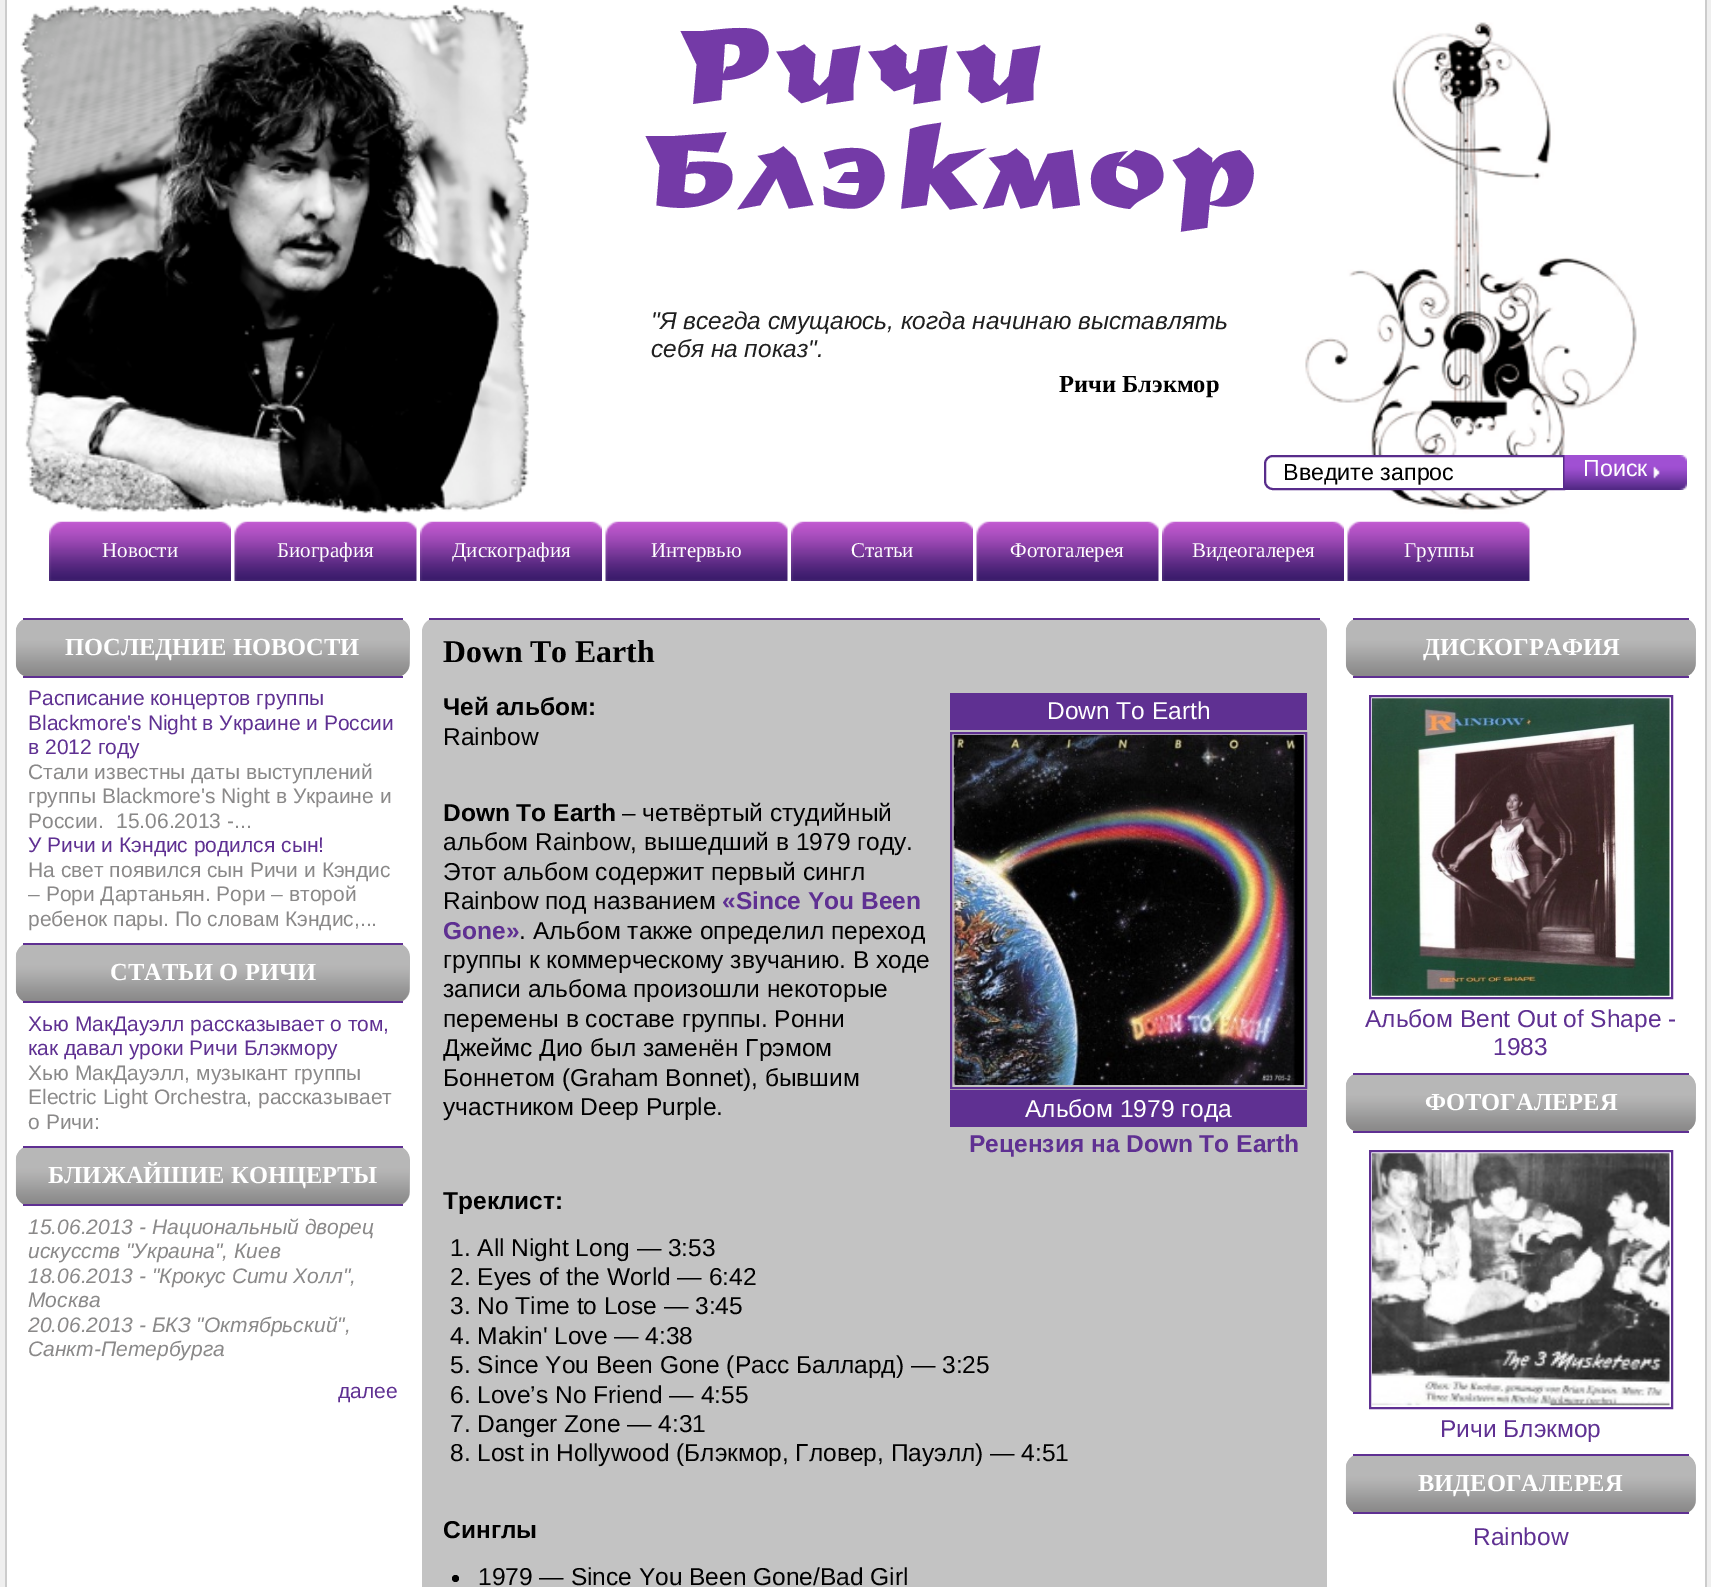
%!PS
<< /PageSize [1711 1587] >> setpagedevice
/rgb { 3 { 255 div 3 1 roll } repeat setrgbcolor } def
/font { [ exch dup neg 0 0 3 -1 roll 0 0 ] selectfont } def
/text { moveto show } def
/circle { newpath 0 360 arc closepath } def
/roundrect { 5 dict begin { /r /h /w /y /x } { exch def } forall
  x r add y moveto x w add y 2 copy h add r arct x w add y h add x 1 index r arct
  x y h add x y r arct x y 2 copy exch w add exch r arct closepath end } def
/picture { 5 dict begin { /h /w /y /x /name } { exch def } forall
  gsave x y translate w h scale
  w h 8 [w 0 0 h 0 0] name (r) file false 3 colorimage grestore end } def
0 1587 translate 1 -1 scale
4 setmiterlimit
239 239 239 rgb
0 0 1711 1587 rectfill
255 255 255 rgb
7 0 1698 1587 rectfill
204 204 204 rgb
1705 0 2 1587 rectfill
5 0 2 1587 rectfill
(img_01.rgb) 20 4 1617 510 picture
255 255 255 rgb
1273 456 moveto 291 0 rlineto 0 33 rlineto -291 0 rlineto -4.5 0 -8 -3.5 -8 -8 rcurveto 0 -17 rlineto 0 -4.5 3.5 -8 8 -8 rcurveto closepath gsave fill grestore
88 44 139 rgb
2 setlinewidth
stroke
(img_02.rgb) 1564 455 123 35 picture
(img_03.rgb) 49 521 182 60 picture
(img_04.rgb) 234 521 183 60 picture
(img_03.rgb) 420 521 182 60 picture
(img_04.rgb) 605 521 183 60 picture
(img_03.rgb) 791 521 182 60 picture
(img_05.rgb) 976 521 183 60 picture
(img_03.rgb) 1162 521 182 60 picture
(img_06.rgb) 1347 521 183 60 picture
183 183 183 rgb
16 618 394 59 14 roundrect fill
(img_07.rgb) 15 619 395 57 picture
95 48 146 rgb
23 618 380 2 rectfill
23 676 380 2 rectfill
183 183 183 rgb
16 943 394 60 14 roundrect fill
(img_08.rgb) 15 945 395 56 picture
95 48 146 rgb
23 943 380 2 rectfill
23 1001 380 2 rectfill
183 183 183 rgb
16 1146 394 60 14 roundrect fill
(img_08.rgb) 15 1148 395 56 picture
95 48 146 rgb
23 1146 380 2 rectfill
23 1204 380 2 rectfill
195 195 195 rgb
422 618 905 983 14 roundrect fill
95 48 146 rgb
429 618 891 2 rectfill
950 693 357 37 rectfill
951 733 355 355 rectstroke
(img_09.rgb) 953 735 351 350 picture
950 1090 357 37 rectfill
0 0 0 rgb
455.5 1578.5 3.5 circle fill
183 183 183 rgb
1346 618 350 59 14 roundrect fill
(img_10.rgb) 1345 619 351 57 picture
95 48 146 rgb
1353 618 336 2 rectfill
1353 676 336 2 rectfill
1370 696 302 302 rectstroke
(img_11.rgb) 1372 698 298 298 picture
183 183 183 rgb
1346 1073 350 59 14 roundrect fill
(img_10.rgb) 1345 1074 351 57 picture
95 48 146 rgb
1353 1073 336 2 rectfill
1353 1131 336 2 rectfill
1370 1151 302 257 rectstroke
(img_12.rgb) 1372 1153 298 253 picture
183 183 183 rgb
1346 1454 350 60 14 roundrect fill
(img_13.rgb) 1345 1456 351 56 picture
95 48 146 rgb
1353 1454 336 2 rectfill
1353 1512 336 2 rectfill
/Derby-Bold 105 font
116 58 167 rgb
681 102 moveto 8.75 0 (Ричи) ashow
646 207 moveto 8.75 0 (Блэкмор) ashow
/LiberationSans-Italic 24.5 font
32 32 32 rgb
("Я всегда смущаюсь, когда начинаю выставлять) 651 329 text
(себя на показ".) 651 357 text
/LiberationSerif-Bold 24.5 font
0 0 0 rgb
(Ричи Блэкмор) 1059 392 text
/LiberationSans-Regular 23.25 font
(Введите запрос) 1283 480 text
255 255 255 rgb
(Поиск) 1583 476 text
/LiberationSerif-Regular 21 font
(Новости) 102 557 text
(Биография) 277 557 text
(Дискография) 452 557 text
(Интервью) 651 557 text
(Статьи) 851 557 text
(Фотогалерея) 1010 557 text
(Видеогалерея) 1192 557 text
(Группы) 1404 557 text
/LiberationSerif-Bold 24.5 font
(ПОСЛЕДНИЕ НОВОСТИ) 65 655 text
/LiberationSans-Regular 21 font
95 48 146 rgb
(Расписание концертов группы) 28 705 text
(Blackmore's Night в Украине и России) 28 730 text
(в 2012 году) 28 754 text
138 137 137 rgb
(Стали известны даты выступлений) 28 779 text
(группы Blackmore's Night в Украине и) 28 803 text
(России.) 28 828 text
(15.06.2013 -...) 116 828 text
95 48 146 rgb
(У Ричи и Кэндис родился сын!) 28 852 text
138 137 137 rgb
(На свет появился сын Ричи и Кэндис) 28 877 text
(– Рори Дартаньян. Рори – второй) 28 901 text
(ребенок пары. По словам Кэндис,...) 28 926 text
/LiberationSerif-Bold 24.5 font
255 255 255 rgb
(СТАТЬИ О РИЧИ) 110 980 text
/LiberationSans-Regular 21 font
95 48 146 rgb
(Хью МакДауэлл рассказывает о том,) 28 1031 text
(как давал уроки Ричи Блэкмору) 28 1055 text
138 137 137 rgb
(Хью МакДауэлл, музыкант группы) 28 1080 text
(Electric Light Orchestra, рассказывает) 28 1104 text
(о Ричи:) 28 1129 text
/LiberationSerif-Bold 24.5 font
255 255 255 rgb
(БЛИЖАЙШИЕ КОНЦЕРТЫ) 48 1183 text
/LiberationSans-Italic 21 font
138 137 137 rgb
(15.06.2013 - Национальный дворец) 28 1234 text
(искусств "Украина", Киев) 28 1258 text
(18.06.2013 - "Крокус Сити Холл",) 28 1283 text
(Москва) 28 1307 text
(20.06.2013 - БКЗ "Октябрьский",) 28 1332 text
(Санкт-Петербургa) 28 1356 text
/LiberationSans-Regular 21 font
95 48 146 rgb
(далее) 338 1398 text
/LiberationSerif-Bold 31.75 font
0 0 0 rgb
(Down To Earth) 443 662 text
/LiberationSans-Bold 24.5 font
(Чей альбом:) 443 715 text
/LiberationSans-Regular 24.5 font
(Rainbow) 443 745 text
255 255 255 rgb
(Down To Earth) 1047 719 text
(Альбом 1979 года) 1025 1117 text
/LiberationSans-Bold 24.5 font
95 48 146 rgb
(Рецензия на Down To Earth) 969 1152 text
0 0 0 rgb
(Down To Earth) 443 821 text
/LiberationSans-Regular 24.5 font
(– четвёртый студийный) 622 821 text
(альбом Rainbow, вышедший в 1979 году.) 443 850 text
(Этот альбом содержит первый сингл) 443 880 text
(Rainbow под названием) 443 909 text
/LiberationSans-Bold 24.5 font
95 48 146 rgb
(«Since You Been) 722 909 text
(Gone») 443 939 text
/LiberationSans-Regular 24.5 font
0 0 0 rgb
(. Альбом также определил переход) 519 939 text
(группы к коммерческому звучанию. В ходе) 443 968 text
(записи альбома произошли некоторые) 443 997 text
(перемены в составе группы. Ронни) 443 1027 text
(Джеймс Дио был заменён Грэмом) 443 1056 text
(Боннетом \(Graham Bonnet\), бывшим) 443 1086 text
(участником Deep Purple.) 443 1115 text
/LiberationSans-Bold 24.5 font
(Треклист:) 443 1209 text
/LiberationSans-Regular 24.5 font
(1. All Night Long — 3:53) 450 1256 text
(2. Eyes of the World — 6:42) 450 1285 text
(3. No Time to Lose — 3:45) 450 1314 text
(4. Makin' Love — 4:38) 450 1344 text
(5. Since You Been Gone \(Расс Баллард\) — 3:25) 450 1373 text
(6. Love’s No Friend — 4:55) 450 1403 text
(7. Danger Zone — 4:31) 450 1432 text
(8. Lost in Hollywood \(Блэкмор, Гловер, Пауэлл\) — 4:51) 450 1461 text
/LiberationSans-Bold 24.5 font
(Синглы) 443 1538 text
/LiberationSans-Regular 24.5 font
(1979 — Since You Been Gone/Bad Girl) 478 1585 text
/LiberationSerif-Bold 24.5 font
255 255 255 rgb
(ДИСКОГРАФИЯ) 1423 655 text
/LiberationSans-Regular 24.5 font
95 48 146 rgb
(Альбом Bent Out of Shape -) 1365 1027 text
(1983) 1493 1055 text
/LiberationSerif-Bold 24.5 font
255 255 255 rgb
(ФОТОГАЛЕРЕЯ) 1425 1110 text
/LiberationSans-Regular 24.5 font
95 48 146 rgb
(Ричи Блэкмор) 1440 1437 text
/LiberationSerif-Bold 24.5 font
255 255 255 rgb
(ВИДЕОГАЛЕРЕЯ) 1418 1491 text
/LiberationSans-Regular 24.5 font
95 48 146 rgb
(Rainbow) 1473 1545 text
showpage
